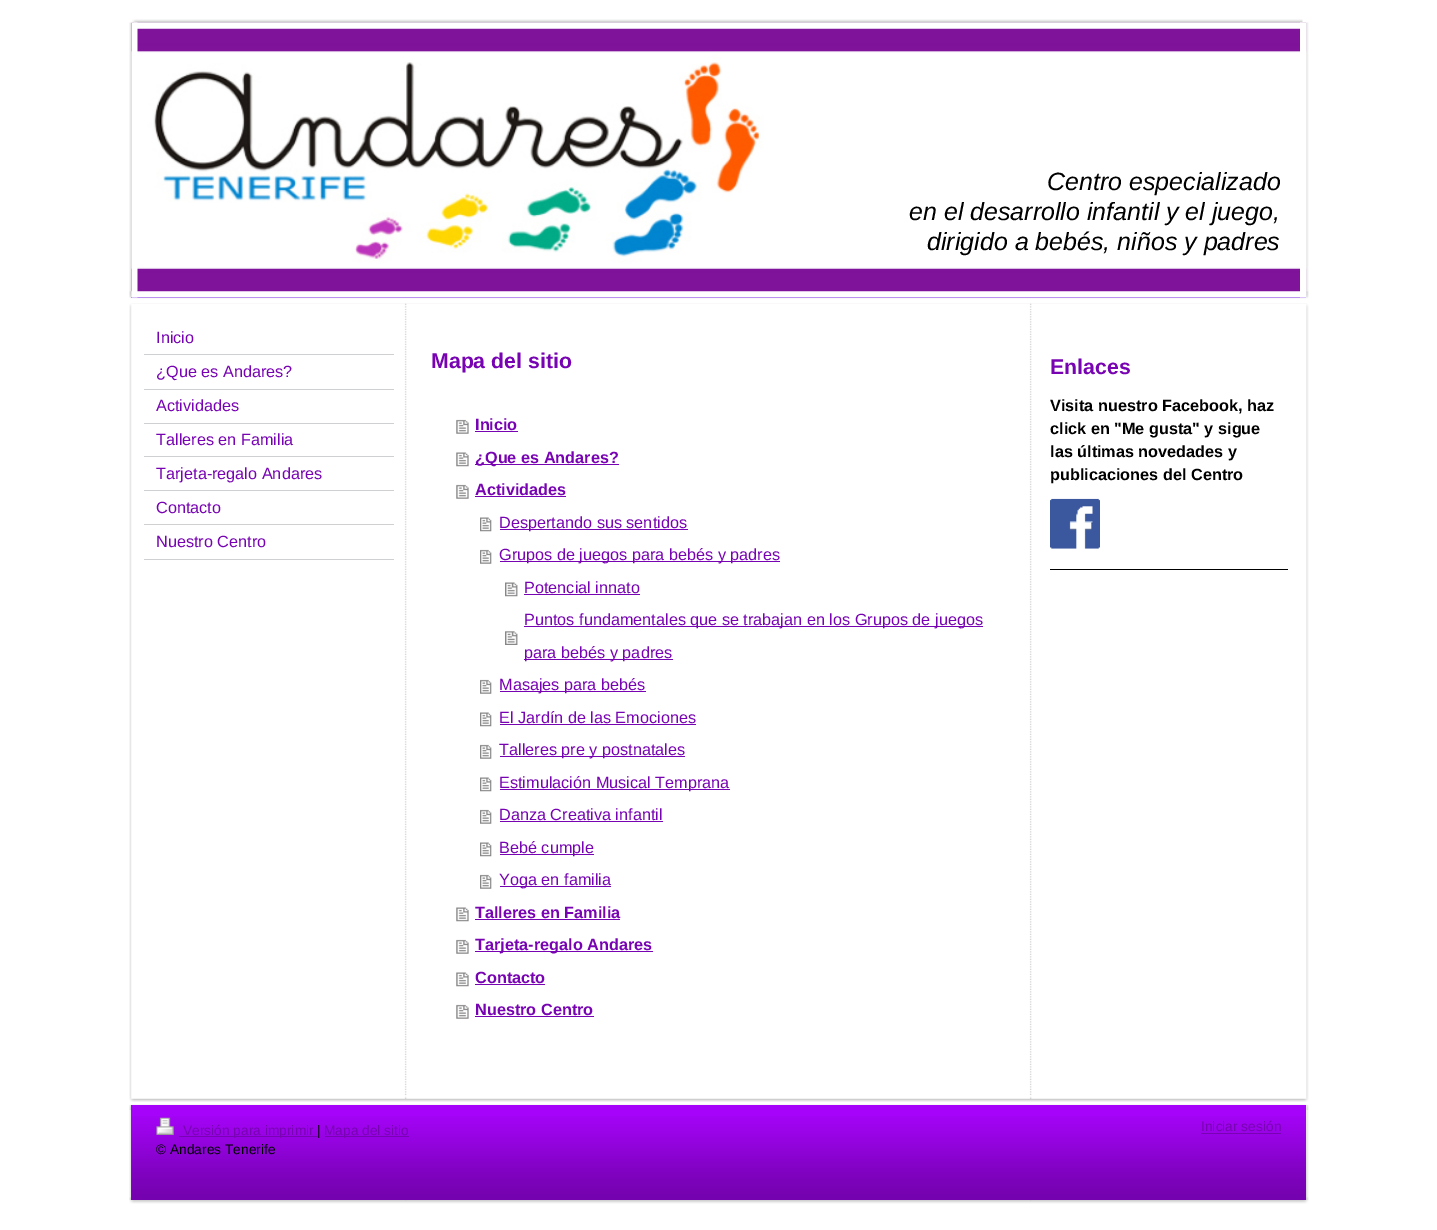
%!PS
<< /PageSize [1437 1230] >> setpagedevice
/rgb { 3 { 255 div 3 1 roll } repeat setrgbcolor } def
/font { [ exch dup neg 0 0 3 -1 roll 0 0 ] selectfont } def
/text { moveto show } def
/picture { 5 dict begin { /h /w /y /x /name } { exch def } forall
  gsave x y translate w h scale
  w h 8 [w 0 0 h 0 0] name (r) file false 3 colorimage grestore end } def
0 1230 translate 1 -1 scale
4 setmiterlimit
255 255 255 rgb
0 0 1437 1230 rectfill
98 3 253 rgb
131 23 1175 275 rectfill
(img_03.rgb) 131 22 1176 276 picture
(img_01.rgb) 131 19 1172 10 picture
(img_02.rgb) 129 22 9 276 picture
(img_04.rgb) 1300 22 9 276 picture
(img_05.rgb) 129 291 1180 8 picture
(img_06.rgb) 129 303 1180 6 picture
(img_07.rgb) 129 1096 1180 6 picture
(img_08.rgb) 129 308 1180 789 picture
207 208 209 rgb
144 354 250 1 rectfill
144 389 250 1 rectfill
144 423 250 1 rectfill
144 456 250 1 rectfill
144 490 250 1 rectfill
144 524 250 1 rectfill
144 559 250 1 rectfill
(img_09.rgb) 456 419 13 15 picture
120 3 178 rgb
475 431 43 1 rectfill
(img_10.rgb) 456 452 13 15 picture
475 464 144 1 rectfill
(img_09.rgb) 456 484 13 15 picture
475 496 91 1 rectfill
(img_11.rgb) 480 517 12 15 picture
500 529 188 1 rectfill
(img_12.rgb) 480 549 12 15 picture
500 561 280 1 rectfill
(img_13.rgb) 505 582 13 15 picture
524 594 116 1 rectfill
(img_14.rgb) 505 631 13 14 picture
524 626 459 1 rectfill
524 659 149 1 rectfill
(img_12.rgb) 480 679 12 15 picture
500 691 146 1 rectfill
(img_11.rgb) 480 712 12 15 picture
500 724 196 1 rectfill
(img_12.rgb) 480 744 12 15 picture
500 756 185 1 rectfill
(img_15.rgb) 480 777 12 15 picture
500 789 230 1 rectfill
(img_12.rgb) 480 809 12 15 picture
500 821 163 1 rectfill
(img_11.rgb) 480 842 12 15 picture
500 854 94 1 rectfill
(img_12.rgb) 480 874 12 15 picture
500 886 111 1 rectfill
(img_10.rgb) 456 907 13 15 picture
475 919 145 1 rectfill
(img_09.rgb) 456 939 13 15 picture
475 951 178 1 rectfill
(img_10.rgb) 456 972 13 15 picture
475 984 70 1 rectfill
(img_09.rgb) 456 1004 13 15 picture
475 1016 119 1 rectfill
(img_16.rgb) 1050 498 50 51 picture
0 0 0 rgb
1050 569 238 1 rectfill
(img_17.rgb) 129 1104 1180 6 picture
(img_18.rgb) 129 1197 1180 7 picture
(img_19.rgb) 129 1105 1180 95 picture
166 3 250 rgb
131 1105 1175 95 rectfill
(img_20.rgb) 131 1116 1176 84 picture
(img_21.rgb) 156 1117 18 18 picture
120 3 178 rgb
179 1136 139 1 rectfill
325 1136 84 1 rectfill
1201 1133 80 1 rectfill
/LiberationSans-Italic 25 font
0 0 0 rgb
(Centro especializado) 1047 190 text
(en el desarrollo infantil y el juego,) 909 220 text
(dirigido a bebés, niños y padres) 927 250 text
/LiberationSans-Regular 16.25 font
120 3 178 rgb
(Inicio) 156 343 text
(¿Que es Andares?) 156 377 text
(Actividades) 156 411 text
(Talleres en Familia) 156 445 text
(Tarjeta-regalo Andares) 156 479 text
(Contacto) 156 513 text
(Nuestro Centro) 156 547 text
/LiberationSans-Bold 21.25 font
(Mapa del sitio) 431 368 text
/LiberationSans-Bold 16.25 font
(Inicio) 475 430 text
(¿Que es Andares?) 475 463 text
(Actividades) 475 495 text
/LiberationSans-Regular 16.25 font
(Despertando sus sentidos) 499 528 text
(Grupos de juegos para bebés y padres) 499 560 text
(Potencial innato) 524 593 text
(Puntos fundamentales que se trabajan en los Grupos de juegos) 524 625 text
(para bebés y padres) 524 658 text
(Masajes para bebés) 499 690 text
(El Jardín de las Emociones) 499 723 text
(Talleres pre y postnatales) 499 755 text
(Estimulación Musical Temprana) 499 788 text
(Danza Creativa infantil) 499 820 text
(Bebé cumple) 499 853 text
(Yoga en familia) 499 885 text
/LiberationSans-Bold 16.25 font
(Talleres en Familia) 475 918 text
(Tarjeta-regalo Andares) 475 950 text
(Contacto) 475 983 text
(Nuestro Centro) 475 1015 text
/LiberationSans-Bold 21.25 font
(Enlaces) 1050 374 text
/LiberationSans-Bold 16.25 font
0 0 0 rgb
(Visita nuestro Facebook, haz) 1050 411 text
(click en "Me gusta" y sigue) 1050 434 text
(las últimas novedades y) 1050 457 text
(publicaciones del Centro) 1050 480 text
/LiberationSans-Regular 13.75 font
120 3 178 rgb
(Versión para imprimir) 183 1135 text
0 0 0 rgb
(|) 317 1135 text
120 3 178 rgb
(Mapa del sitio) 324 1135 text
0 0 0 rgb
(© Andares Tenerife) 156 1154 text
120 3 178 rgb
(Iniciar sesión) 1201 1131 text
showpage
